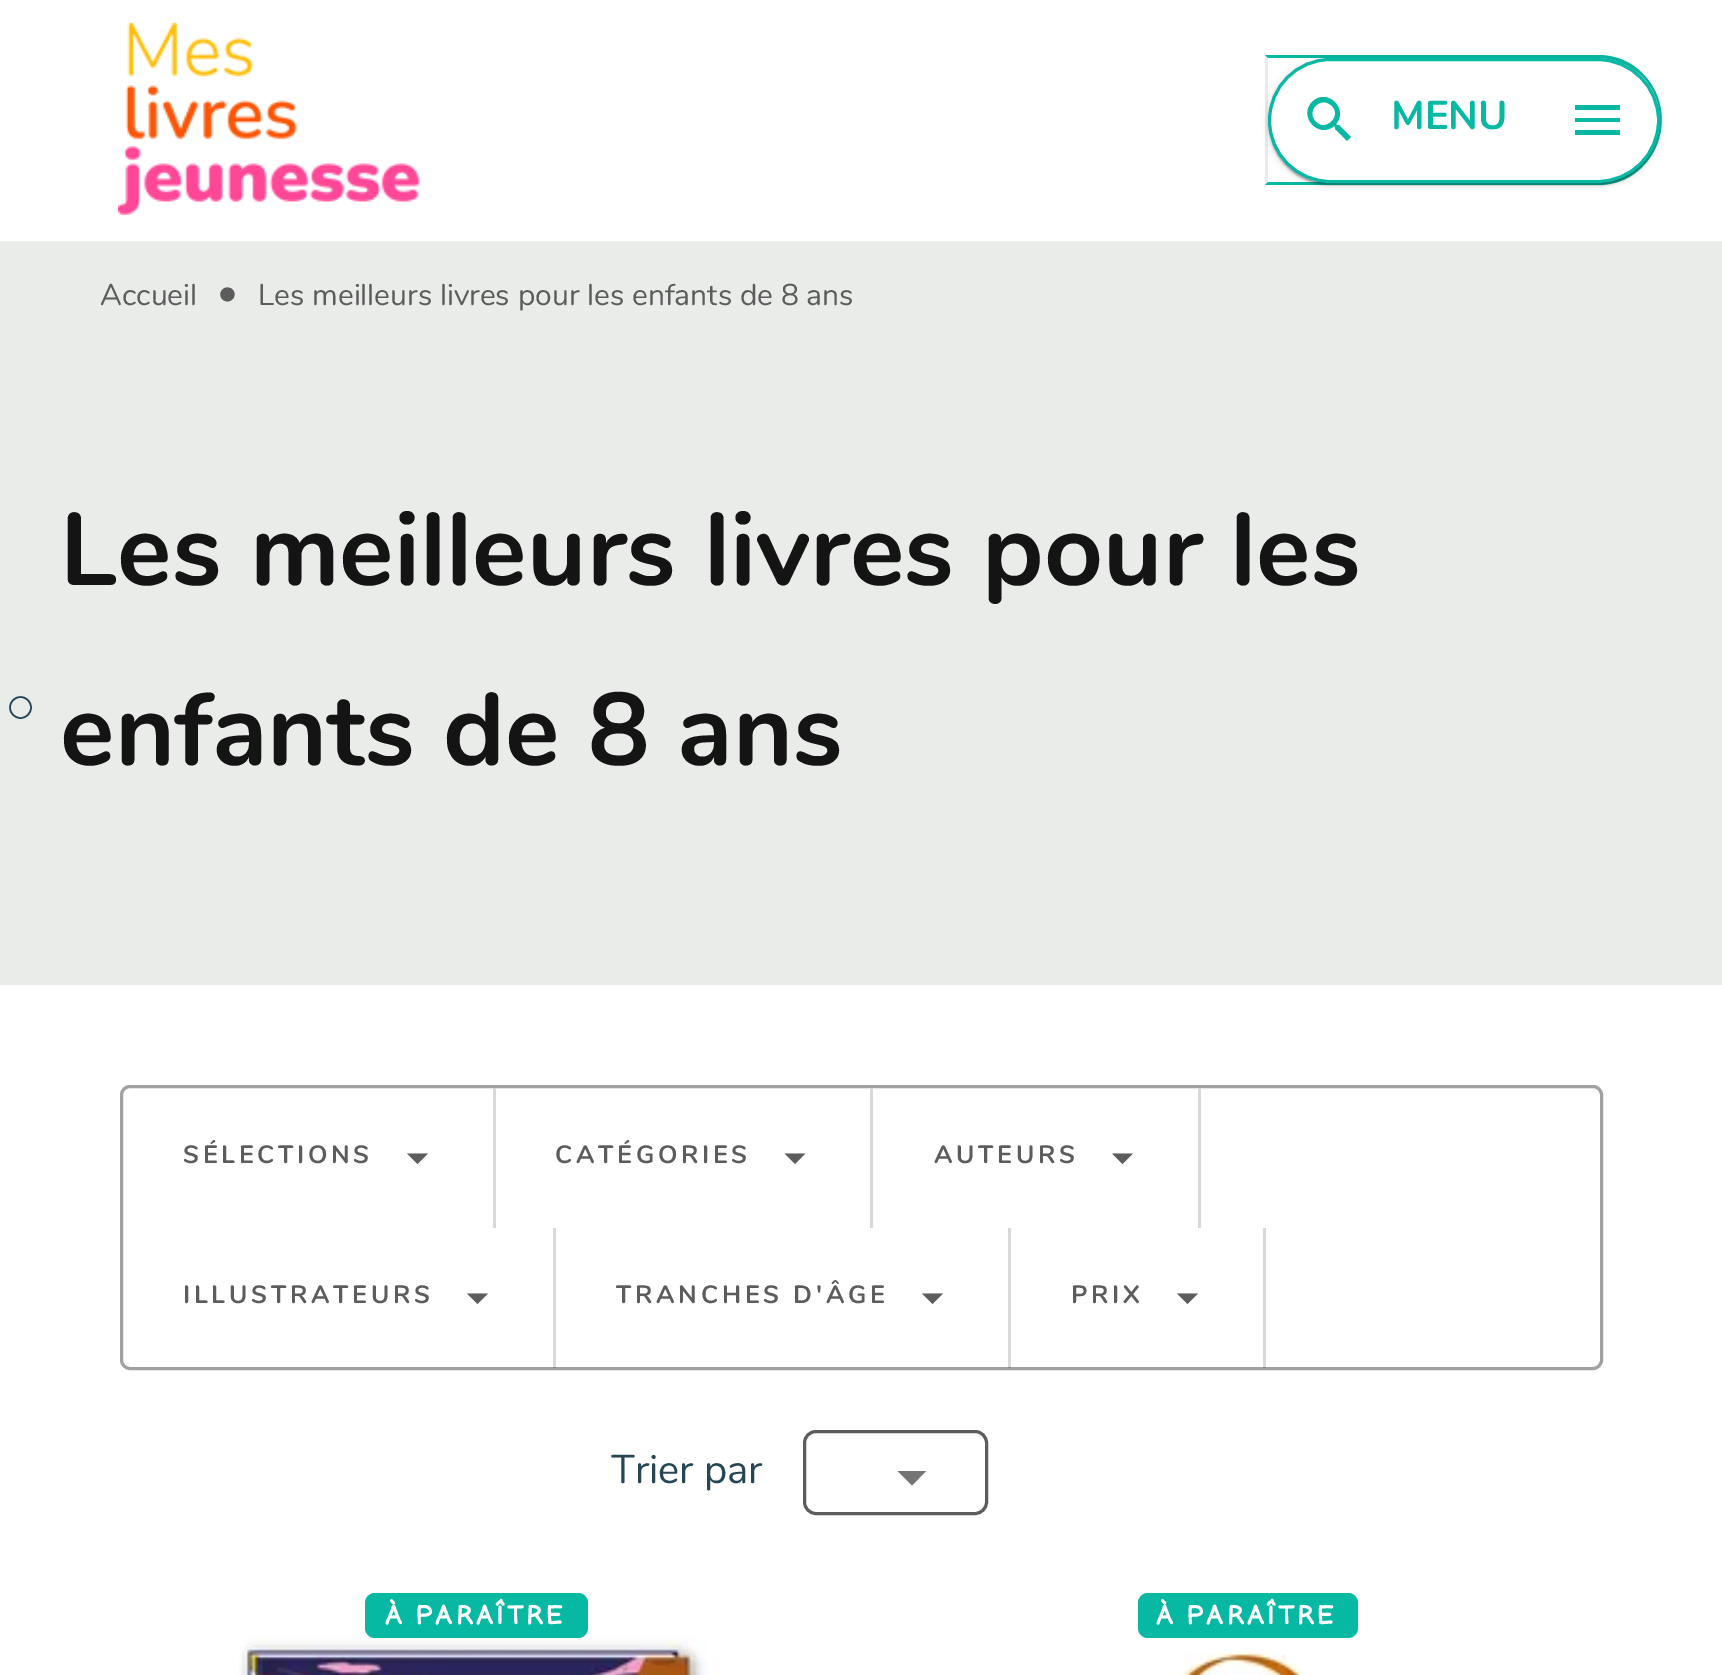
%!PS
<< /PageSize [1722 1675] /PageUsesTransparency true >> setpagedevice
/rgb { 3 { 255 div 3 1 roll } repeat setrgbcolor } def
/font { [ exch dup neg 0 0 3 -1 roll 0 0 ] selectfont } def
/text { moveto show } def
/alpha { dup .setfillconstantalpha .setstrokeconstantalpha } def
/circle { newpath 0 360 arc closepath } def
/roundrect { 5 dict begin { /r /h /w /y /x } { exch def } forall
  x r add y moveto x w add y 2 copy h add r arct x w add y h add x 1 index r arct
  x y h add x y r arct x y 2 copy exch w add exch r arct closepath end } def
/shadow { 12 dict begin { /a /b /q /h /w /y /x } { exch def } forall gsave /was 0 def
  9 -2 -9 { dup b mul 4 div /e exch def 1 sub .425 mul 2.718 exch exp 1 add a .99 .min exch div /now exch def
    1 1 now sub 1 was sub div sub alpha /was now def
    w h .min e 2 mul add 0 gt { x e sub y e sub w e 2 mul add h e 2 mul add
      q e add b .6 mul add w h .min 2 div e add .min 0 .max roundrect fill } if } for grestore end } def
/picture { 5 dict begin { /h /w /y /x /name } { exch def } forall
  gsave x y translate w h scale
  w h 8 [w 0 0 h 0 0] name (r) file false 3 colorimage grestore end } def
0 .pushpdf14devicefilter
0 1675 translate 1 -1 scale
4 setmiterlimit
255 255 255 rgb
0 0 1722 1675 rectfill
(img_01.rgb) 118 22 303 193 picture
7 184 163 rgb
1265 55 moveto 3 3 rlineto 330 0 rlineto 17 0 32 7 44 18 rcurveto 1 -2 rlineto -11 -12 -27 -19 -45 -19 rcurveto closepath fill
1643 74 moveto 25 25 25 67 0 92 rcurveto -1 -2 rlineto 24 -24 24 -64 0 -88 rcurveto closepath fill
1598 185 moveto 18 0 34 -7 45 -19 rcurveto -1 -2 rlineto -12 11 -27 18 -44 18 rcurveto -330 0 rlineto -3 3 rlineto closepath fill
0.08 alpha
0 0 0 rgb
1265 55 moveto 0 130 rlineto 3 -3 rlineto 0 -124 rlineto closepath fill
1 alpha
1268 60 392 125 62.5 4 0.12 shadow
1268 60 392 125 62.5 1 0.14 shadow
1270 65 388 120 60 1 0.2 shadow
255 255 255 rgb
1269.5 59.5 389 122 61 roundrect gsave fill grestore
7 184 163 rgb
3 setlinewidth
stroke
1316 122 moveto 10 10 26 -6 16 -16 rcurveto -11 -11 -27 5 -16 16 rcurveto closepath 1339 125 moveto 12 12 rlineto -4 4 rlineto -12 -12 rlineto 0 -2 rlineto -1 -1 rlineto -15 13 -36 -9 -22 -24 rcurveto 15 -15 37 7 24 22 rcurveto 1 1 rlineto closepath fill
1575 105 moveto 45 0 rlineto 0 5 rlineto -45 0 rlineto closepath 1575 122 moveto 0 -4 rlineto 45 0 rlineto 0 4 rlineto closepath 1575 135 moveto 0 -5 rlineto 45 0 rlineto 0 5 rlineto closepath fill
233 236 233 rgb
0 241 1722 744 rectfill
38 70 83 rgb
1.6 setlinewidth
20.5 707.5 10.5 circle stroke
161 161 161 rgb
3 setlinewidth
121.5 1086.5 1480 282 8.5 roundrect stroke
217 217 217 rgb
493 1088 3 140 rectfill
92 92 92 rgb
407 1153.5 moveto 21 0 rlineto -10.5 10.5 rlineto closepath fill
217 217 217 rgb
870 1088 3 140 rectfill
92 92 92 rgb
784.5 1153.5 moveto 21 0 rlineto -10.5 10.5 rlineto closepath fill
217 217 217 rgb
1198 1088 3 140 rectfill
92 92 92 rgb
1112 1153.5 moveto 21 0 rlineto -10.5 10.5 rlineto closepath fill
0.16 alpha
20 20 20 rgb
553 1228 3 140 rectfill
1 alpha
92 92 92 rgb
467 1293.5 moveto 21 0 rlineto -10.5 10.5 rlineto closepath fill
0.16 alpha
20 20 20 rgb
1008 1228 3 140 rectfill
1 alpha
92 92 92 rgb
922 1293.5 moveto 21 0 rlineto -10.5 10.5 rlineto closepath fill
0.16 alpha
20 20 20 rgb
1263 1228 3 140 rectfill
1 alpha
92 92 92 rgb
1177 1293.5 moveto 21 0 rlineto -10.5 10.5 rlineto closepath fill
804.5 1431.5 182 82 11.5 roundrect stroke
117 117 117 rgb
897.5 1471 moveto 14.5 14.5 rlineto 14 -14.5 rlineto closepath fill
(img_02.rgb) 239 1635 469 40 picture
7 184 163 rgb
365 1593 223 45 10 roundrect fill
1138 1593 220 45 10 roundrect fill
(img_03.rgb) 1178 1652 127 23 picture
/Nunito-Bold 40 font
(MENU) 1391 129 text
/Nunito-Regular 30 font
92 92 92 rgb
(Accueil) 100 305 text
/Nunito-Regular 40 font
(•) 217 305 text
/Nunito-Regular 30 font
(Les meilleurs livres pour les enfants de 8 ans) 258 305 text
/Nunito-Bold 102.9 font
20 20 20 rgb
(Les meilleurs livres pour les) 60 585 text
(enfants de 8 ans) 60 765 text
/Nunito-Bold 25 font
92 92 92 rgb
183 1163 moveto 3.75 0 (SÉLECTIONS) ashow
555 1163 moveto 3.75 0 (CATÉGORIES) ashow
934 1163 moveto 3.75 0 (AUTEURS) ashow
183 1303 moveto 3.75 0 (ILLUSTRATEURS) ashow
616 1303 moveto 3.75 0 (TRANCHES D'ÂGE) ashow
1071 1303 moveto 3.75 0 (PRIX) ashow
/Nunito-Regular 40 font
38 70 83 rgb
(Trier par) 611 1483 text
/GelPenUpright-Bold 25 font
255 255 255 rgb
385 1624 moveto 3.75 0 (À PARAÎTRE) ashow
1156 1624 moveto 3.75 0 (À PARAÎTRE) ashow
.poppdf14devicefilter showpage
